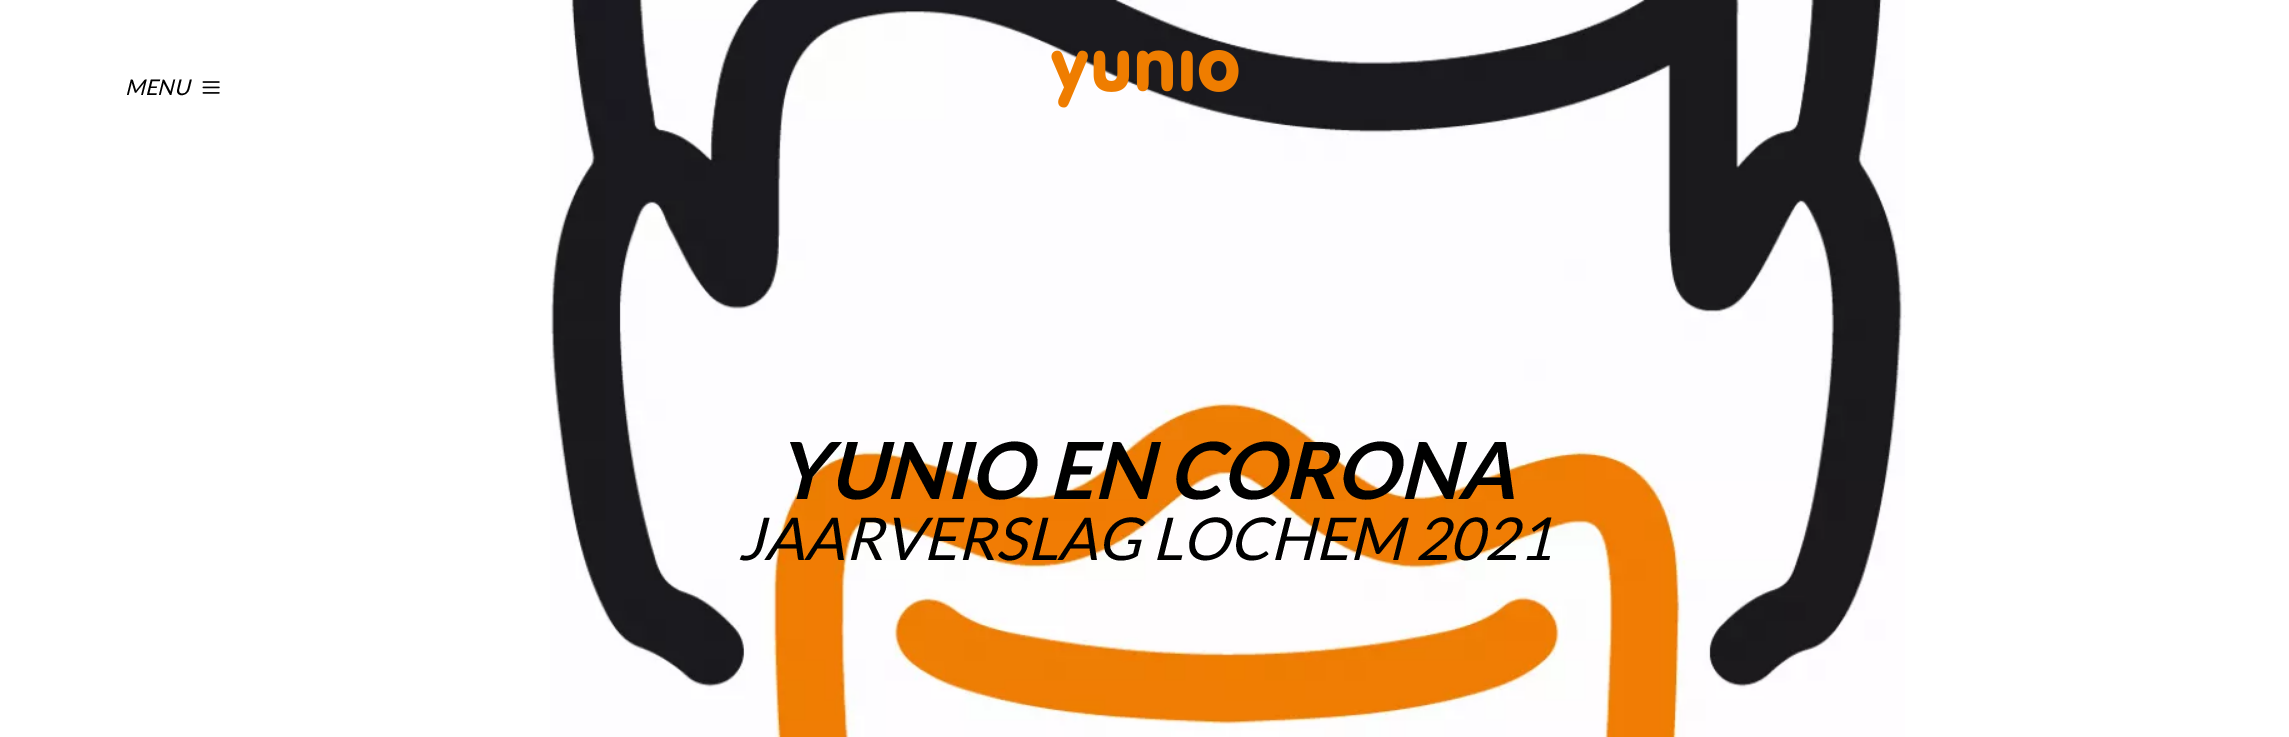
%!PS
<< /PageSize [2289 737] >> setpagedevice
/rgb { 3 { 255 div 3 1 roll } repeat setrgbcolor } def
/font { [ exch dup neg 0 0 3 -1 roll 0 0 ] selectfont } def
/text { moveto show } def
/picture { 5 dict begin { /h /w /y /x /name } { exch def } forall
  gsave x y translate w h scale
  w h 8 [w 0 0 h 0 0] name (r) file false 3 colorimage grestore end } def
0 737 translate 1 -1 scale
4 setmiterlimit
255 255 255 rgb
0 0 2289 737 rectfill
(img_01.rgb) 202 81 18 13 picture
(img_03.rgb) 550 0 1355 737 picture
(img_02.rgb) 1051 50 188 58 picture
/Lato-Italic 21.5 font
0 0 0 rgb
(MENU) 125 95 text
/Lato-BoldItalic 78.9 font
(YUNIO EN CORONA) 776 499 text
/Lato-Italic 59.1 font
(JAARVERSLAG LOCHEM) 738 560 text
(2021) 1415 560 text
showpage
